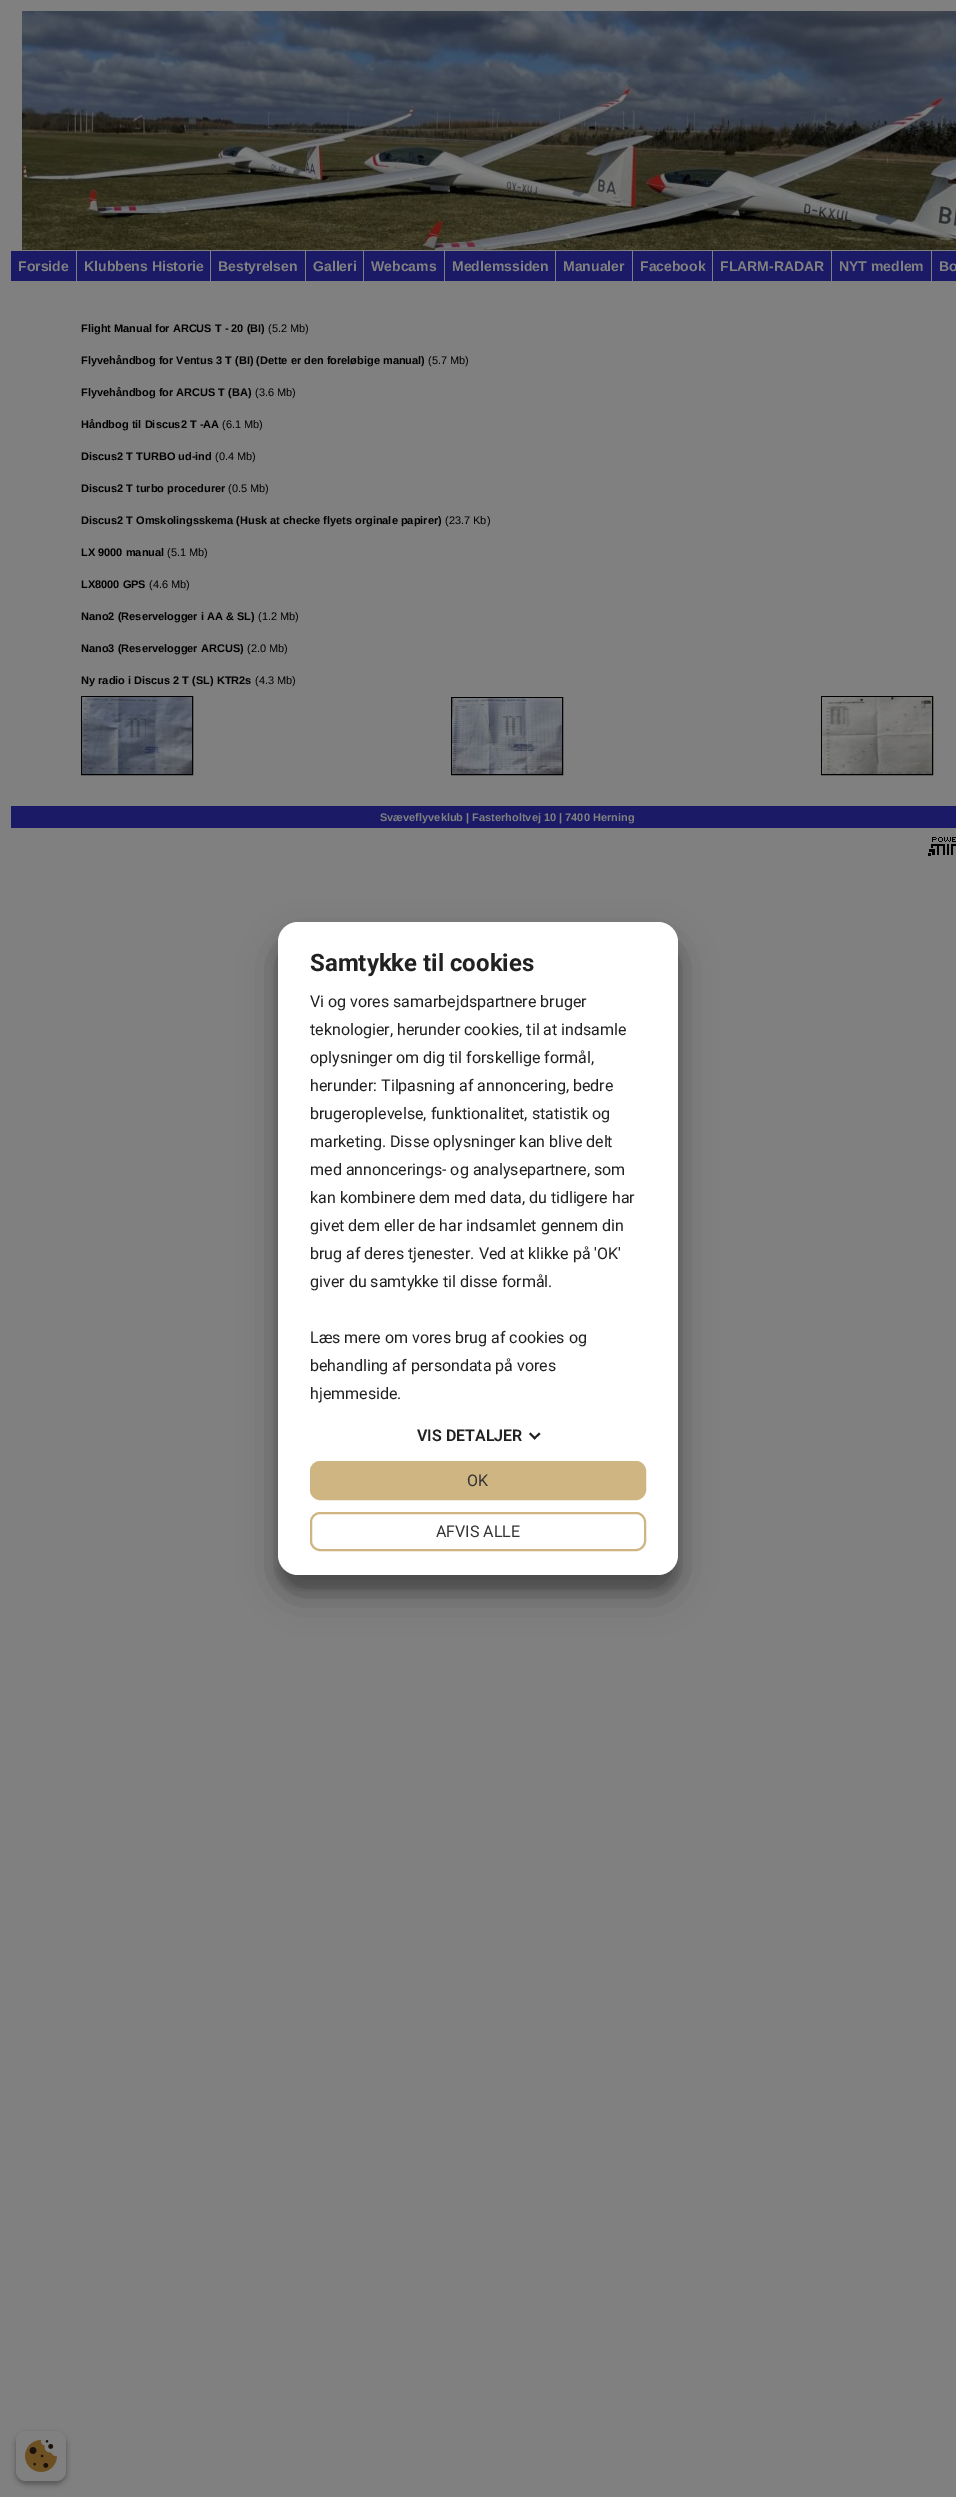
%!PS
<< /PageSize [956 2497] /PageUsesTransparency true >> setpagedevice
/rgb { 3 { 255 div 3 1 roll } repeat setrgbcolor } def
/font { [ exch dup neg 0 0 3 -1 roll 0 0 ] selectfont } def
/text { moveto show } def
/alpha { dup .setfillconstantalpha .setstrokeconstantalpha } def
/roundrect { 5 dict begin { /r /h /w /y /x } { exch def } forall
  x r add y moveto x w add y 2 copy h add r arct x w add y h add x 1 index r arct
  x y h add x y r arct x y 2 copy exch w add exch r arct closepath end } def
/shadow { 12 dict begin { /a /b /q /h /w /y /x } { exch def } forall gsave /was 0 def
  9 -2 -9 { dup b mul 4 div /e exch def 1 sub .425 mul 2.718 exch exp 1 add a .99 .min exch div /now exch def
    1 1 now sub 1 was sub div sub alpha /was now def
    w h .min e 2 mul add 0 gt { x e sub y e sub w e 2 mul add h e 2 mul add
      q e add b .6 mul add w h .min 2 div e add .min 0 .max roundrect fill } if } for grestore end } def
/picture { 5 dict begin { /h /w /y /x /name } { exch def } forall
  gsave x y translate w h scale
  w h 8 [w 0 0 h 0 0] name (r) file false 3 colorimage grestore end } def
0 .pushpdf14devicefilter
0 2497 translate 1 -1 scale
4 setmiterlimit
128 128 128 rgb
0 0 956 2497 rectfill
(img_01.rgb) 22 11 934 239 picture
26 26 102 rgb
11 251 65 30 rectfill
77 251 133 30 rectfill
211 251 94 30 rectfill
306 251 57 30 rectfill
364 251 80 30 rectfill
445 251 110 30 rectfill
556 251 76 30 rectfill
633 251 79 30 rectfill
713 251 118 30 rectfill
832 251 99 30 rectfill
932 251 24 30 rectfill
0 0 0 rgb
81.5 696.5 111 78 rectstroke
(img_02.rgb) 82 697 110 77 picture
451.5 697.5 111 77 rectstroke
(img_03.rgb) 452 698 110 76 picture
821.5 696.5 111 78 rectstroke
(img_04.rgb) 822 697 110 77 picture
26 26 102 rgb
11 806 945 22 rectfill
(img_05.rgb) 928 837 28 19 picture
0 0 0 rgb
278 937 400 653 20 6 0.22 shadow
278 941 400 653 20 19 0.3 shadow
255 255 255 rgb
278 922 400 653 20 roundrect fill
33 33 33 rgb
539 1432.5 moveto 1.5 1.5 rlineto -6 5.5 rlineto -1 -1.5 rlineto closepath fill
530.5 1432.5 moveto 5.5 5.5 rlineto -1.5 1.5 rlineto -5.5 -5.5 rlineto closepath fill
206 181 130 rgb
311 1462 334 37 9 roundrect gsave fill grestore
2 setlinewidth
stroke
311 1513 334 37 9 roundrect stroke
0 0 0 rgb
16 2434 50 50 10 3 0.23 shadow
16 2434 50 50 10 3 0.16 shadow
128 128 128 rgb
16 2431 50 50 10 roundrect fill
(img_06.rgb) 25 2440 32 32 picture
/LiberationSans-Bold 14 font
(Forside) 18 271 text
(Klubbens Historie) 84 271 text
(Bestyrelsen) 218 271 text
(Galleri) 313 271 text
(Webcams) 371 271 text
(Medlemssiden) 452 271 text
(Manualer) 563 271 text
(Facebook) 640 271 text
(FLARM-RADAR) 720 271 text
(NYT medlem) 839 271 text
(Bo) 939 271 text
/LiberationSans-Bold 11 font
0 0 0 rgb
(Flight Manual for ARCUS T - 20 \(BI\)) 81 332 text
/LiberationSans-Regular 11 font
(\(5.2 Mb\)) 268 332 text
/LiberationSans-Bold 11 font
(Flyvehåndbog for Ventus 3 T \(BI\) \(Dette er den foreløbige manual\)) 81 364 text
/LiberationSans-Regular 11 font
(\(5.7 Mb\)) 428 364 text
/LiberationSans-Bold 11 font
(Flyvehåndbog for ARCUS T \(BA\)) 81 396 text
/LiberationSans-Regular 11 font
(\(3.6 Mb\)) 255 396 text
/LiberationSans-Bold 11 font
(Håndbog til Discus2 T -AA) 81 428 text
/LiberationSans-Regular 11 font
(\(6.1 Mb\)) 222 428 text
/LiberationSans-Bold 11 font
(Discus2 T TURBO ud-ind) 81 460 text
/LiberationSans-Regular 11 font
(\(0.4 Mb\)) 215 460 text
/LiberationSans-Bold 11 font
(Discus2 T turbo procedurer) 81 492 text
/LiberationSans-Regular 11 font
(\(0.5 Mb\)) 228 492 text
/LiberationSans-Bold 11 font
(Discus2 T Omskolingsskema \(Husk at checke flyets orginale papirer\)) 81 524 text
/LiberationSans-Regular 11 font
(\(23.7 Kb\)) 445 524 text
/LiberationSans-Bold 11 font
(LX 9000 manual) 81 556 text
/LiberationSans-Regular 11 font
(\(5.1 Mb\)) 167 556 text
/LiberationSans-Bold 11 font
(LX8000 GPS) 81 588 text
/LiberationSans-Regular 11 font
(\(4.6 Mb\)) 149 588 text
/LiberationSans-Bold 11 font
(Nano2 \(Reservelogger i AA & SL\)) 81 620 text
/LiberationSans-Regular 11 font
(\(1.2 Mb\)) 258 620 text
/LiberationSans-Bold 11 font
(Nano3 \(Reservelogger ARCUS\)) 81 652 text
/LiberationSans-Regular 11 font
(\(2.0 Mb\)) 247 652 text
/LiberationSans-Bold 11 font
(Ny radio i Discus 2 T \(SL\) KTR2s) 81 684 text
/LiberationSans-Regular 11 font
(\(4.3 Mb\)) 255 684 text
/LiberationSans-Bold 11 font
128 128 128 rgb
(Svæveflyveklub | Fasterholtvej 10 | 7400 Herning) 380 821 text
/Roboto-Bold 24 font
33 33 33 rgb
(Samtykke til cookies) 310 971 text
/Roboto-Regular 16 font
(Vi og vores samarbejdspartnere bruger) 310 1007 text
(teknologier, herunder cookies, til at indsamle) 310 1035 text
(oplysninger om dig til forskellige formål,) 310 1063 text
(herunder: Tilpasning af annoncering, bedre) 310 1091 text
(brugeroplevelse, funktionalitet, statistik og) 310 1119 text
(marketing. Disse oplysninger kan blive delt) 310 1147 text
(med annoncerings- og analysepartnere, som) 310 1175 text
(kan kombinere dem med data, du tidligere har) 310 1203 text
(givet dem eller de har indsamlet gennem din) 310 1231 text
(brug af deres tjenester. Ved at klikke på 'OK') 310 1259 text
(giver du samtykke til disse formål.) 310 1287 text
(Læs mere om vores brug af cookies og) 310 1343 text
(behandling af persondata på vores) 310 1371 text
(hjemmeside.) 310 1399 text
/Roboto-SemiBold 16 font
(VIS DETALJER) 417 1441 text
/Roboto-Regular 16 font
51 51 51 rgb
(OK) 467 1486 text
(AFVIS ALLE) 436 1537 text
.poppdf14devicefilter showpage
